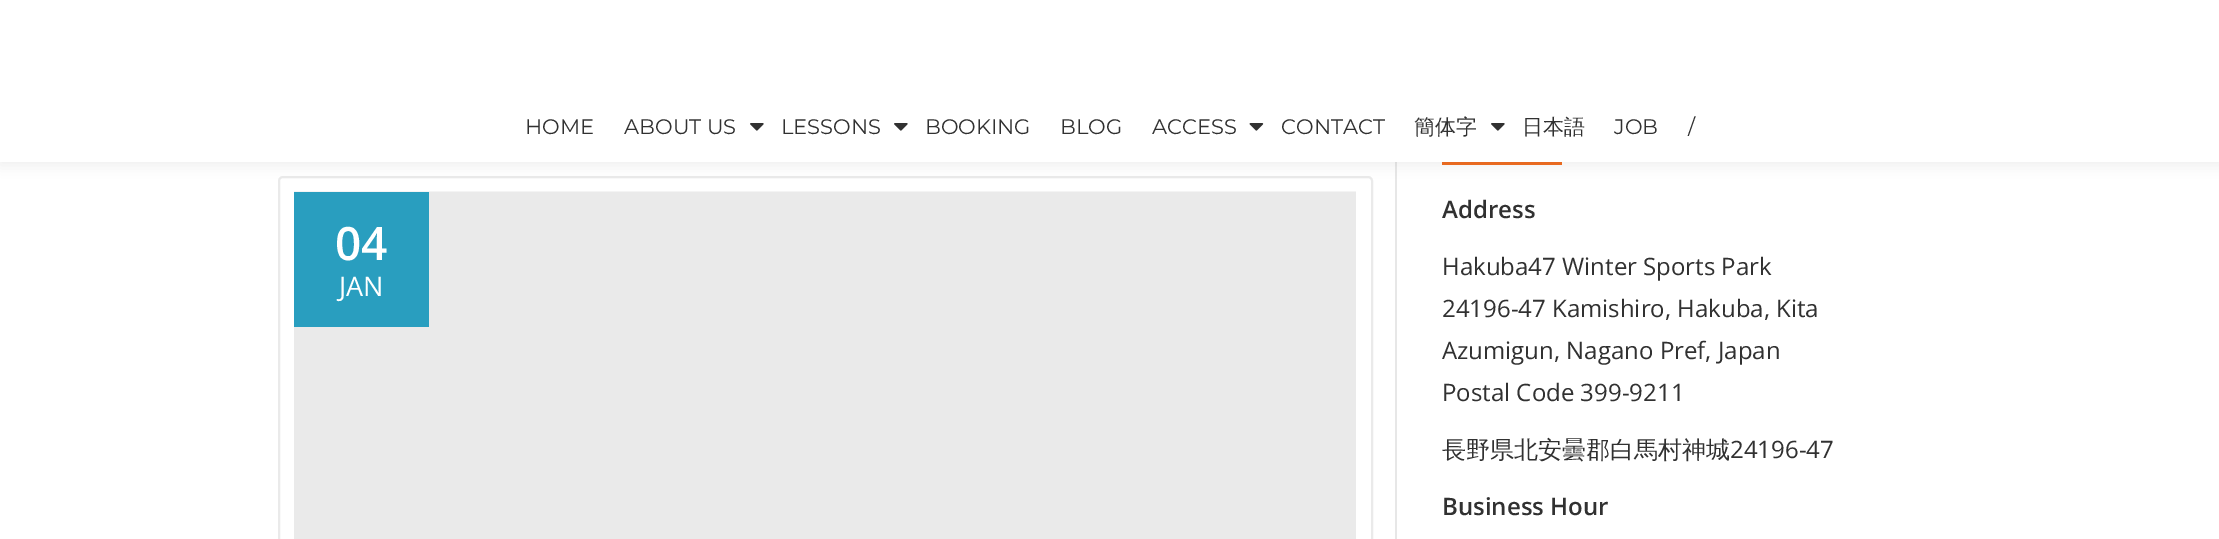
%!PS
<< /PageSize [2219 539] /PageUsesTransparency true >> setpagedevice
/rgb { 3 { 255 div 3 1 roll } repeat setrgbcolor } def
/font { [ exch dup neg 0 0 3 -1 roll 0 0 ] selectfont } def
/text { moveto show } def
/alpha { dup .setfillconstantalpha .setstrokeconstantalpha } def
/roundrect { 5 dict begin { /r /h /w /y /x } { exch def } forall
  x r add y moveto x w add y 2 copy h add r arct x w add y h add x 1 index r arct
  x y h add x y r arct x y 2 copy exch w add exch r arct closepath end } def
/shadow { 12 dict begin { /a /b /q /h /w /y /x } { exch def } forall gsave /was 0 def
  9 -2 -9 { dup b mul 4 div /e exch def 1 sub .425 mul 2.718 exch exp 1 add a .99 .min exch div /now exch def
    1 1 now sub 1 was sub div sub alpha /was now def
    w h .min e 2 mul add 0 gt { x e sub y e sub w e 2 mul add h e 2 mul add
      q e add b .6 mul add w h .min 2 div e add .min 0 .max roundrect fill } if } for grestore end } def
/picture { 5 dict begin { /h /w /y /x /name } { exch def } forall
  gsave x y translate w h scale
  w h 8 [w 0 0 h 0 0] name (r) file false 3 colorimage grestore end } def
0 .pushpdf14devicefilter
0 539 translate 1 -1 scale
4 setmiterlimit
255 255 255 rgb
0 0 2219 539 rectfill
234 234 234 rgb
2 setlinewidth
279 177 1093 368 4 roundrect stroke
231 231 231 rgb
1395 162 2 377 rectfill
241 108 32 rgb
1442 162 120 3 rectfill
50 50 50 rgb
0 -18 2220 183 0 6 0.08 shadow
255 255 255 rgb
0 0 2219 162 rectfill
(img_01.rgb) 750 123 14 8 picture
(img_01.rgb) 894 123 14 8 picture
(img_02.rgb) 1249 123 15 8 picture
(img_01.rgb) 1491 123 14 8 picture
234 234 234 rgb
294 192 1062 347 rectfill
244 244 244 rgb
294 191 1062 1 rectfill
41 158 191 rgb
294 192 135 135 rectfill
/Montserrat-Regular 21 font
49 49 49 rgb
(HOME) 525 134 text
(ABOUT US) 624 134 text
(LESSONS) 781 134 text
(BOOKING) 925 134 text
(BLOG) 1060 134 text
(ACCESS) 1152 134 text
(CONTACT) 1281 134 text
/WenQuanYiZenHei-Medium 21 font
(簡体字) 1414 134 text
(日本語) 1522 134 text
/Montserrat-Regular 21 font
(JOB) 1614 134 text
(/) 1688 134 text
/OpenSans-SemiBold 46 font
255 255 255 rgb
(04) 335 260 text
/OpenSans-Regular 27 font
(JAN) 339 296 text
/OpenSans-SemiBold 24 font
49 49 49 rgb
(Address) 1442 218 text
/OpenSans-Regular 24 font
(Hakuba47 Winter Sports Park) 1442 275 text
(24196-47 Kamishiro, Hakuba, Kita) 1442 317 text
(Azumigun, Nagano Pref, Japan) 1442 359 text
(Postal Code 399-9211) 1442 401 text
/WenQuanYiZenHei-Medium 24 font
(長野県北安曇郡白馬村神城) 1442 458 text
/OpenSans-Regular 24 font
(24196-47) 1730 458 text
/OpenSans-SemiBold 24 font
(Business Hour) 1442 515 text
.poppdf14devicefilter showpage
